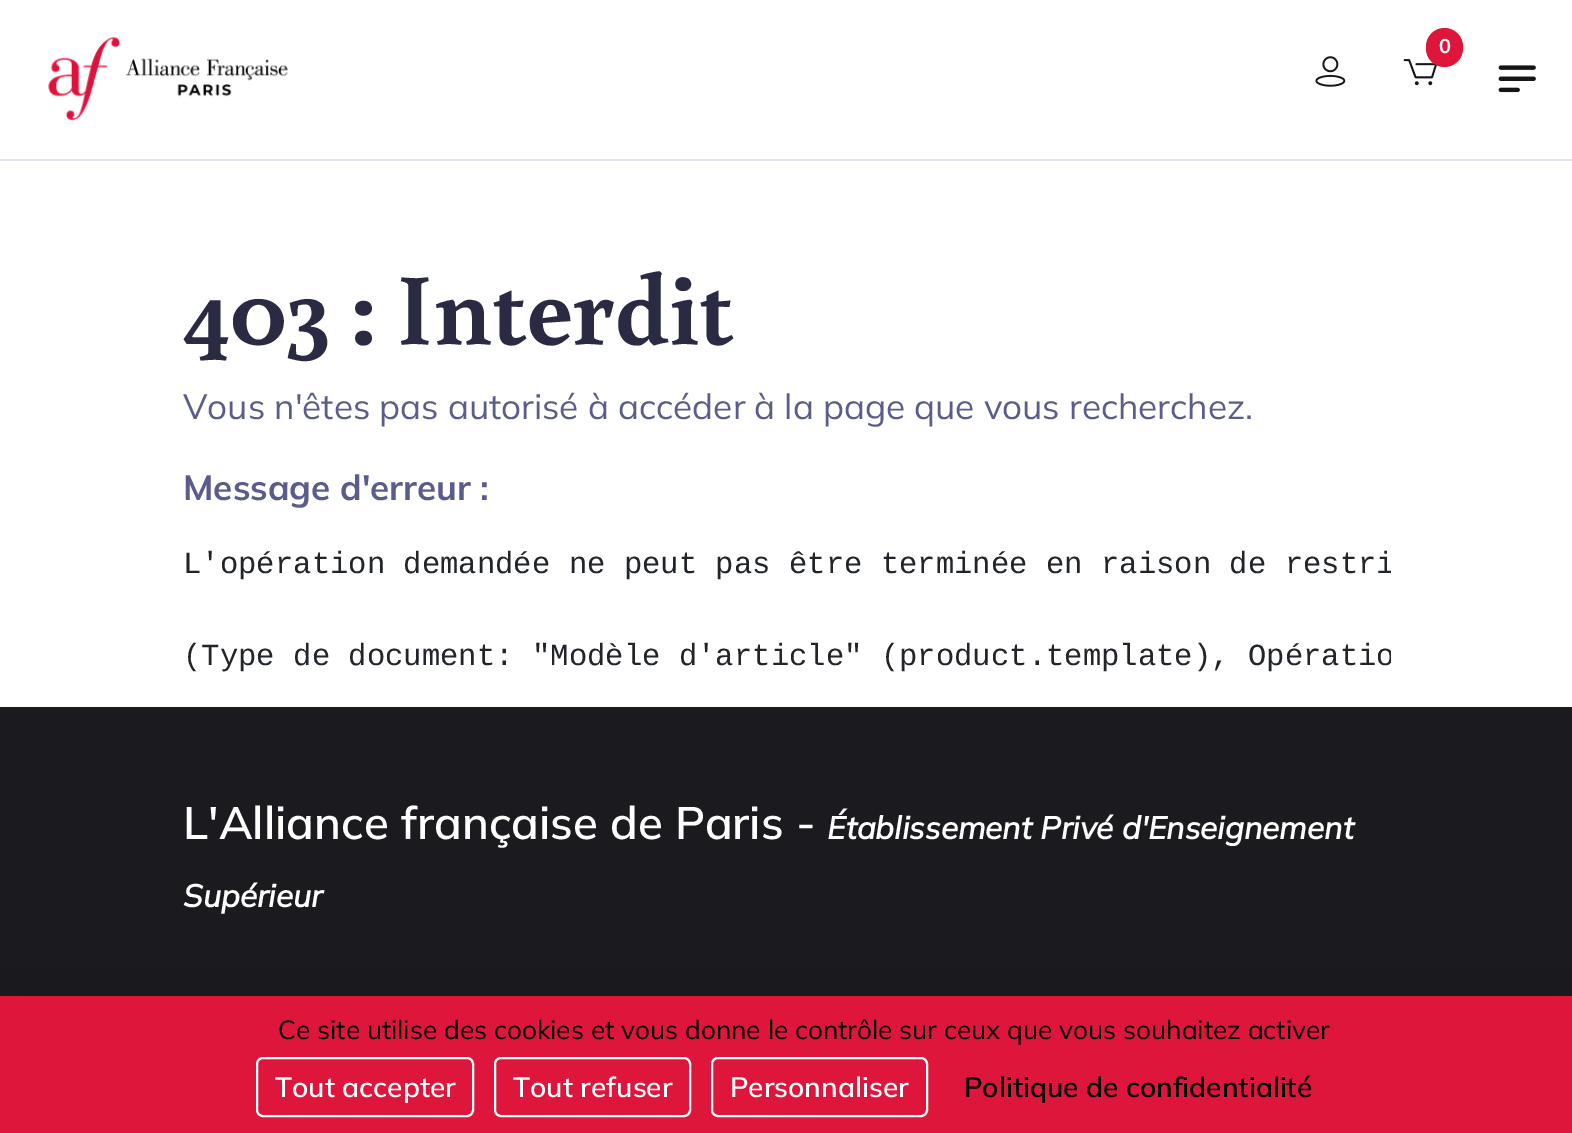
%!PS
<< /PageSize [1572 1133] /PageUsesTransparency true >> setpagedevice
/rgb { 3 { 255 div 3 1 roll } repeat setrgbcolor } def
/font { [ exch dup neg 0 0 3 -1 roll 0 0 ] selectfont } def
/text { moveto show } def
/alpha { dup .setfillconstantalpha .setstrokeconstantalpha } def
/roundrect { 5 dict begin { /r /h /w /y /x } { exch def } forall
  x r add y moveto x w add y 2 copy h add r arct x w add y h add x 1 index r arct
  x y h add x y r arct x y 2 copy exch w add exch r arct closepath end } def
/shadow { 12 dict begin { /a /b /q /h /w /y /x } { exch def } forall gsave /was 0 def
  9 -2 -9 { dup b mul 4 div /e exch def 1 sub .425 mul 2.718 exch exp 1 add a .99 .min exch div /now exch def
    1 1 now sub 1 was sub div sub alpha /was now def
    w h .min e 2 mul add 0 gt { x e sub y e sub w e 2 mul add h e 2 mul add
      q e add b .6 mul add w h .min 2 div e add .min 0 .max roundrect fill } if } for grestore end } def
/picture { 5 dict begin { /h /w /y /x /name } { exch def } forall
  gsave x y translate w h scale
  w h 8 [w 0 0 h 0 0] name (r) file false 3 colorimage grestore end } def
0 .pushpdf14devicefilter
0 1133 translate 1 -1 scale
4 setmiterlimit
255 255 255 rgb
0 0 1572 1133 rectfill
227 230 238 rgb
0 159 1572 2 rectfill
(img_01.rgb) 48 37 240 84 picture
(img_02.rgb) 1403 59 34 27 picture
222 22 59 rgb
1426 28 37 39 18.5 roundrect fill
(img_03.rgb) 1315 56 31 31 picture
(img_04.rgb) 1498 65 38 28 picture
27 27 31 rgb
0 707 1572 289 rectfill
0 0 0 rgb
0 1031 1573 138 0 52.5 0.25 shadow
222 22 59 rgb
0 996 1572 137 rectfill
255 255 255 rgb
2 setlinewidth
257 1058 216 58 6 roundrect stroke
495 1058 195 58 6 roundrect stroke
712 1058 215 58 6 roundrect stroke
/Mulish-Bold 20 font
(0) 1439 53 text
/Buenard-Bold 101.5 font
42 43 67 rgb
(403 : Interdit) 183 344 text
/Mulish-Regular 35 font
90 92 138 rgb
(Vous n'êtes pas autorisé à accéder à la page que vous recherchez.) 183 419 text
/Mulish-Bold 35 font
(Message d'erreur :) 183 500 text
gsave
184 543 1207 136 rectclip
/LiberationMono-Regular 30.6 font
33 37 41 rgb
(L'opération demandée ne peut pas être terminée en raison de restri) 183 573 text
(\(Type de document: "Modèle d'article" \(product.template\), Opératio) 183 665 text
grestore
/Mulish-SemiBold 45.5 font
255 255 255 rgb
(L'Alliance française de Paris -) 183 839 text
/Mulish-BoldItalic 31.5 font
(Établissement Privé d'Enseignement) 827 839 text
(Supérieur) 183 907 text
/Mulish-Regular 26.25 font
0 0 0 rgb
(Ce site utilise des cookies et vous donne le contrôle sur ceux que vous souhaitez activer) 278 1039 text
/Mulish-SemiBold 28 font
255 255 255 rgb
(Tout accepter) 275 1097 text
(Tout refuser) 513 1097 text
(Personnaliser) 730 1097 text
0 0 0 rgb
(Politique de confidentialité) 964 1097 text
.poppdf14devicefilter showpage
